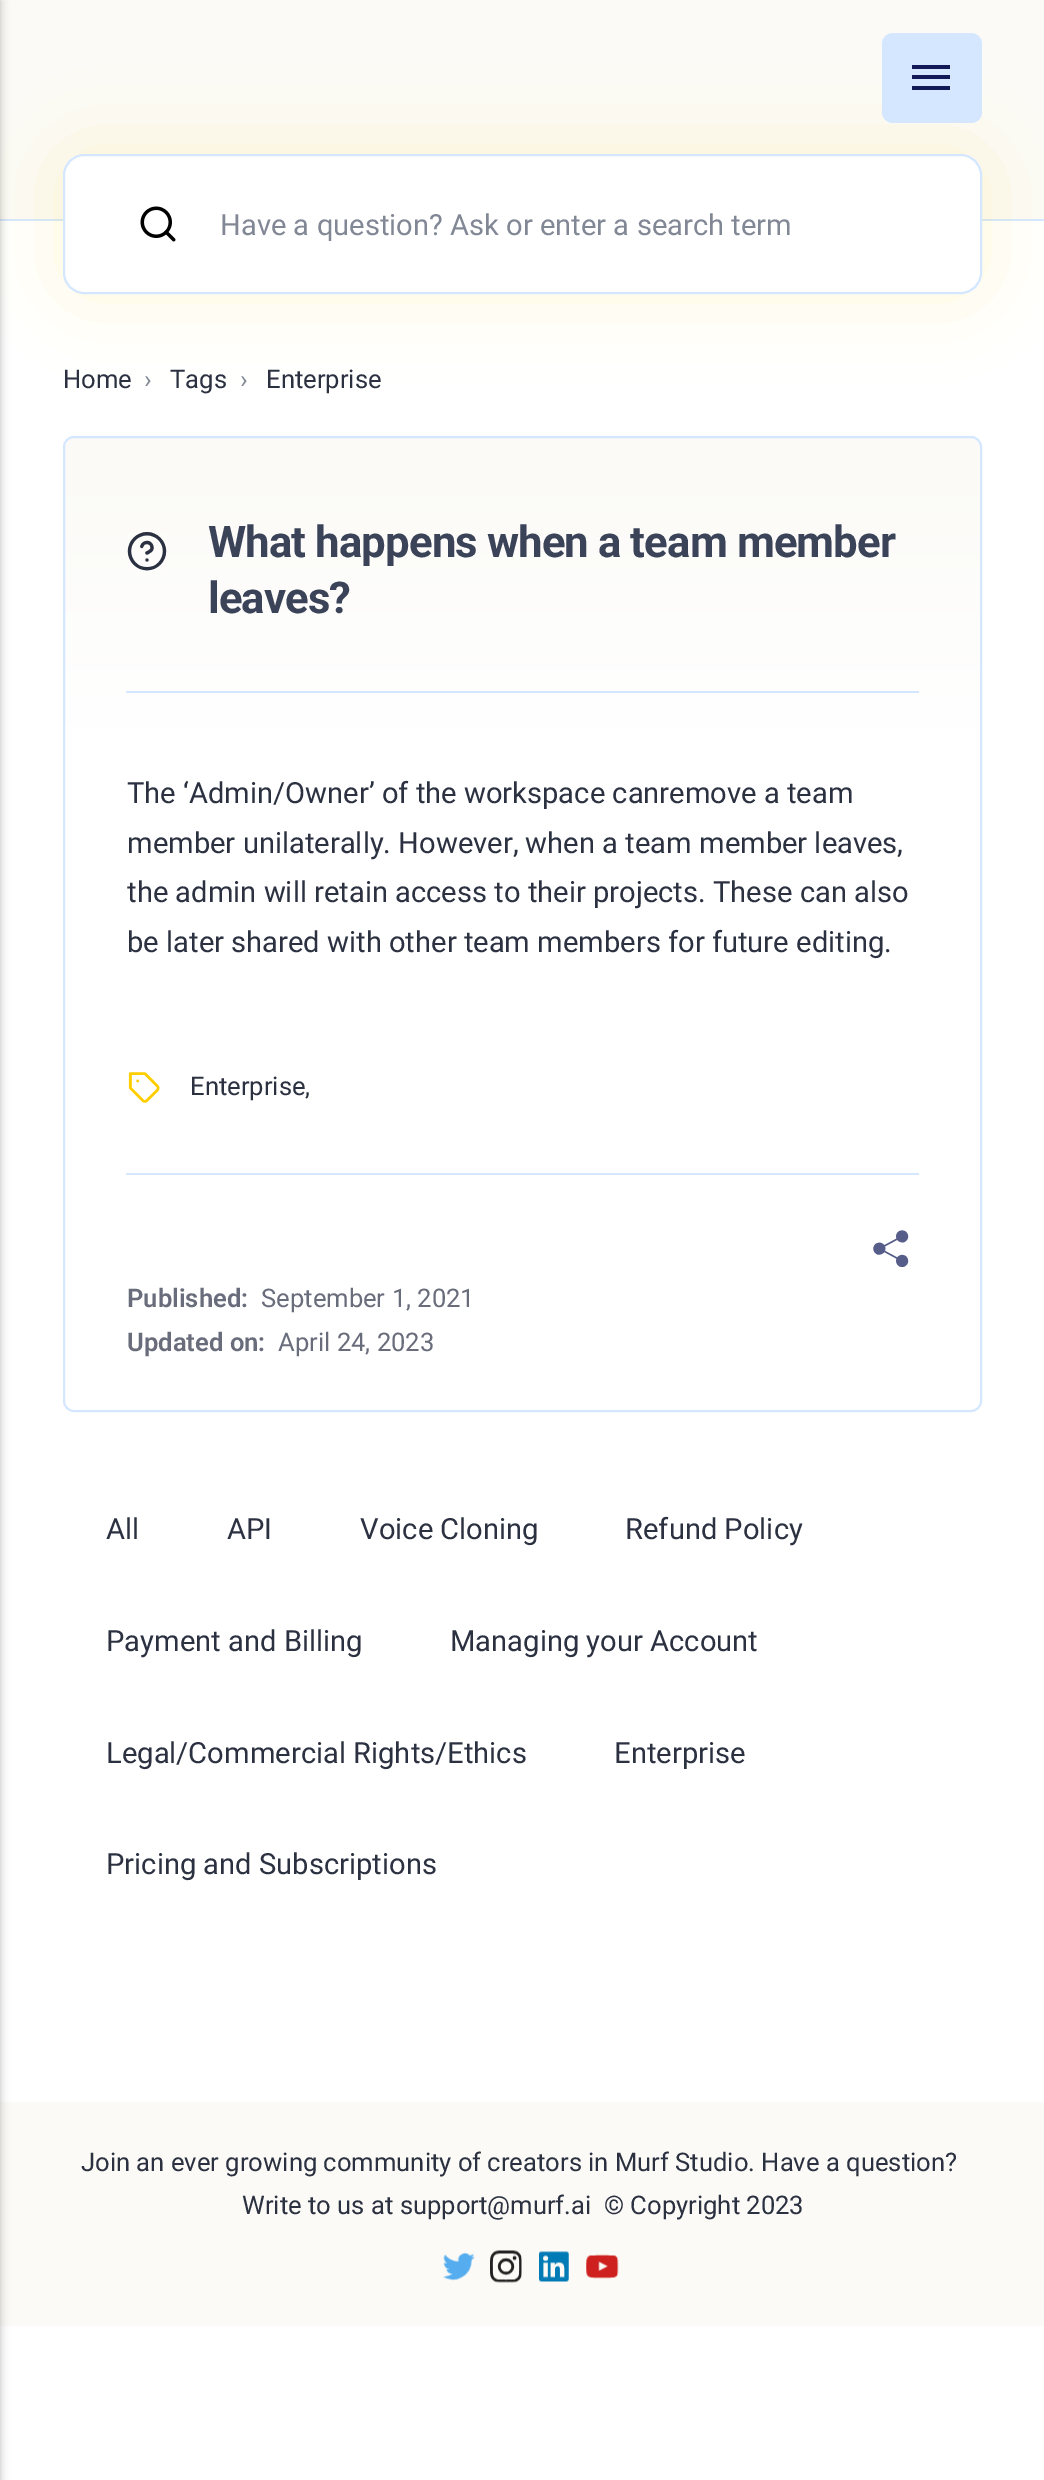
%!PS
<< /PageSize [1044 2480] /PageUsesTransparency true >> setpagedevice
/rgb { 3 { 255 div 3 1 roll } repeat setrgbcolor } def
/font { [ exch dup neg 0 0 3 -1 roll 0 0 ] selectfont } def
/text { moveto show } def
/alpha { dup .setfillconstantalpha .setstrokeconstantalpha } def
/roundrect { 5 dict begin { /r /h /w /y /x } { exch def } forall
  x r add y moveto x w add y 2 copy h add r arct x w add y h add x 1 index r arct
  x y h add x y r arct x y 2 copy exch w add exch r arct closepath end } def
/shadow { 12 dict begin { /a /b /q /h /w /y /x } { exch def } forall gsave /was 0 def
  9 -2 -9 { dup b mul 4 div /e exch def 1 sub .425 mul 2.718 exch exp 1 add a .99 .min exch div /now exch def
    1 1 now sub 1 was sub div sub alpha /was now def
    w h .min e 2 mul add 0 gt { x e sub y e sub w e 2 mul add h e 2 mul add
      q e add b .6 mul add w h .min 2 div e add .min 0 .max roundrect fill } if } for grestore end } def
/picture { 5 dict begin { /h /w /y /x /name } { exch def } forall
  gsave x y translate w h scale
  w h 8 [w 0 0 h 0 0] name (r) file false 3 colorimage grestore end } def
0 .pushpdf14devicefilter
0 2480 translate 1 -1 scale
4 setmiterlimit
255 255 255 rgb
0 0 1044 2480 rectfill
251 250 246 rgb
0 0 1044 219 rectfill
213 231 255 rgb
0 219 1044 2 rectfill
251 250 246 rgb
0 2102 1044 224 rectfill
0 0 0 rgb
-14 0 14 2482 0 4.5 0.25 shadow
255 206 0 rgb
63 154 919 140 21 39.5 0.15 shadow
213 231 255 rgb
882 33 100 90 11 roundrect fill
17 25 87 rgb
912 75 38 4 rectfill
912 65 38 4 rectfill
912 86 38 4 rectfill
255 255 255 rgb
63 154 919 140 21 roundrect fill
(img_01.rgb) 140 206 36 36 picture
213 231 255 rgb
2 setlinewidth
64 155 917 138 20 roundrect stroke
gsave 65 438 915 290 11 roundrect clip newpath
<< /ShadingType 2 /ColorSpace /DeviceRGB /Coords [522 728 522 438] /Extend [true true] /Function << /FunctionType 2 /Domain [0 1] /C0 [1 1 1] /C1 [0.984 0.98 0.965] /N 1 >> >> shfill grestore
64 437 917 974 10 roundrect stroke
126 691 793 2 rectfill
(img_02.rgb) 127 532 40 39 picture
(img_03.rgb) 128 1072 32 31 picture
126 1173 793 2 rectfill
(img_04.rgb) 873 1230 36 37 picture
(img_05.rgb) 443 2252 32 29 picture
(img_06.rgb) 490 2250 32 33 picture
(img_07.rgb) 539 2251 30 31 picture
(img_08.rgb) 586 2254 33 25 picture
/Roboto-Regular 29.15 font
129 135 149 rgb
(Have a question? Ask or enter a search term) 220 235 text
/Roboto-Regular 25.6 font
43 49 64 rgb
(Home) 63 388 text
129 135 149 rgb
(›) 144 388 text
43 49 64 rgb
(Tags) 170 388 text
129 135 149 rgb
(›) 240 388 text
43 49 64 rgb
(Enterprise) 266 388 text
/Roboto-Bold 43.75 font
58 67 88 rgb
208 557 moveto -0.9 0 (What happens when a team member) ashow
208 613 moveto -0.9 0 (leaves?) ashow
/Roboto-Regular 29.15 font
43 49 64 rgb
(The ‘Admin/Owner’ of the workspace canremove a team) 127 803 text
(member unilaterally. However, when a team member leaves,) 127 853 text
(the admin will retain access to their projects. These can also) 127 902 text
(be later shared with other team members for future editing.) 127 952 text
/Roboto-Regular 25.6 font
(Enterprise,) 190 1095 text
/Roboto-SemiBold 25.6 font
105 108 123 rgb
(Published:) 127 1307 text
/Roboto-Regular 25.6 font
(September 1, 2021) 261 1307 text
/Roboto-SemiBold 25.6 font
(Updated on:) 127 1351 text
/Roboto-Regular 25.6 font
(April 24, 2023) 278 1351 text
/Roboto-Regular 29.15 font
43 49 64 rgb
(All) 106 1539 text
(API) 227 1539 text
(Voice Cloning) 360 1539 text
(Refund Policy) 625 1539 text
(Payment and Billing) 106 1651 text
(Managing your Account) 450 1651 text
(Legal/Commercial Rights/Ethics) 106 1763 text
(Enterprise) 614 1763 text
(Pricing and Subscriptions) 106 1874 text
/Roboto-Regular 25.6 font
(Join an ever growing community of creators in Murf Studio. Have a question?) 81 2171 text
(Write to us at support@murf.ai  © Copyright 2023) 242 2214 text
.poppdf14devicefilter showpage
